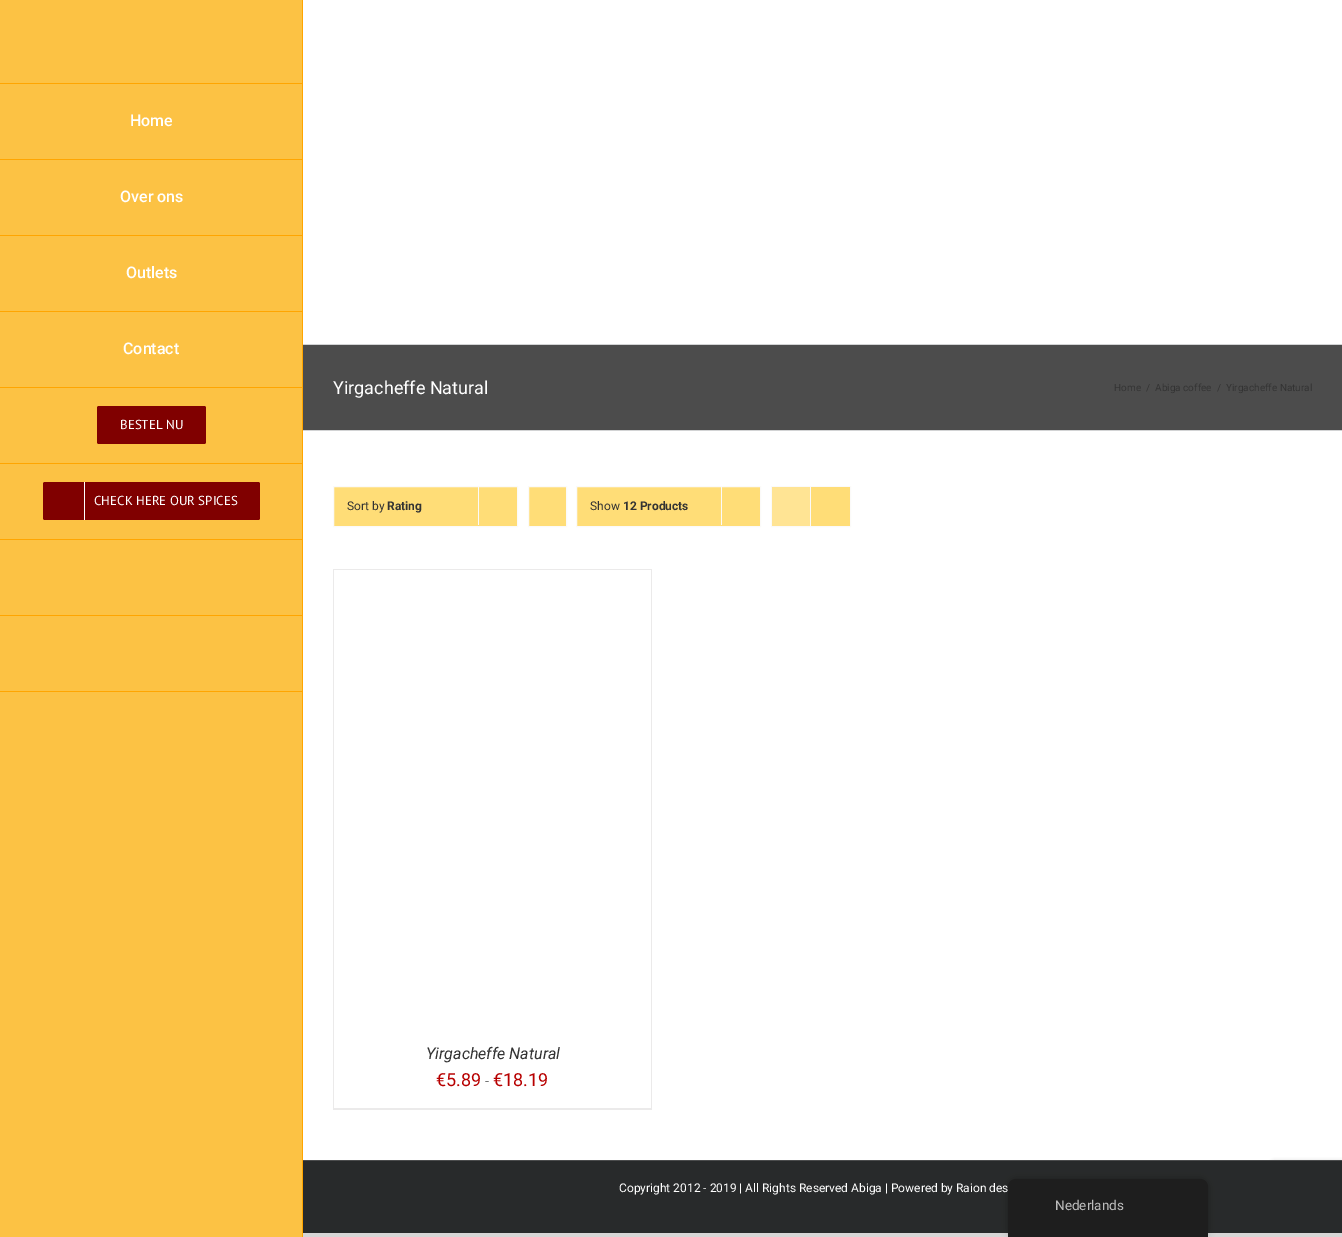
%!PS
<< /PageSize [1342 1237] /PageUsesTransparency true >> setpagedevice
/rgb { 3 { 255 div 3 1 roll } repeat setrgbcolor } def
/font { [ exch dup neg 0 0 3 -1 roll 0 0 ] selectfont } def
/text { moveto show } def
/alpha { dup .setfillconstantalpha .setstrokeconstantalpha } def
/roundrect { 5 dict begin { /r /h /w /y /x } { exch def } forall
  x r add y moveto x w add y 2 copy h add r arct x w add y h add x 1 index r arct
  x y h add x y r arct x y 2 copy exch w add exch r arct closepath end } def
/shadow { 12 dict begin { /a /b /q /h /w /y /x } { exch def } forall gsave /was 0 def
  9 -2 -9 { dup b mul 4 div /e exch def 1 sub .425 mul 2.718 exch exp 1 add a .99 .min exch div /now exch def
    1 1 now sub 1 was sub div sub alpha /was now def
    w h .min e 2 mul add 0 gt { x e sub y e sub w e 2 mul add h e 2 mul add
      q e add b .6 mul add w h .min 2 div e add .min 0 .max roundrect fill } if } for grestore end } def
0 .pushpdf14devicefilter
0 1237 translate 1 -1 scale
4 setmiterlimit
215 214 214 rgb
0 0 1342 1237 rectfill
255 255 255 rgb
303 0 1039 1160 rectfill
252 194 68 rgb
0 0 302 1237 rectfill
255 165 0 rgb
302 0 1 1237 rectfill
0 83 303 1 rectfill
0 159 303 1 rectfill
0 235 303 1 rectfill
0 311 303 1 rectfill
0 387 303 1 rectfill
0 463 303 1 rectfill
128 0 0 rgb
97 406 109 38 2 roundrect fill
255 165 0 rgb
0 539 303 1 rectfill
128 0 0 rgb
43 482 217 38 2 roundrect fill
255 255 255 rgb
84 482 1 38 rectfill
255 165 0 rgb
0 615 303 1 rectfill
0 691 303 1 rectfill
76 76 76 rgb
303 345 1039 85 rectfill
210 211 212 rgb
303 344 1039 1 rectfill
303 430 1039 1 rectfill
255 221 119 rgb
333.5 486.5 moveto 184 0 rlineto 0 40 rlineto -184 0 rlineto closepath gsave fill grestore
251 250 249 rgb
stroke
478 486 1 39 rectfill
255 221 119 rgb
528.5 486.5 moveto 38 0 rlineto 0 40 rlineto -38 0 rlineto closepath gsave fill grestore
251 250 249 rgb
stroke
255 221 119 rgb
576.5 486.5 moveto 184 0 rlineto 0 40 rlineto -184 0 rlineto closepath gsave fill grestore
251 250 249 rgb
stroke
721 486 1 39 rectfill
771.5 486.5 79 40 rectstroke
255 228 148 rgb
772 487 38 39 rectfill
251 250 249 rgb
810 487 1 39 rectfill
255 221 119 rgb
811 487 39 39 rectfill
235 234 234 rgb
333 569 319 1 rectfill
651 569 1 541 rectfill
333 1108 319 2 rectfill
333 569 1 541 rectfill
128 128 128 rgb
1272 1163 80 60 2 2.5 1 shadow
40 42 43 rgb
303 1161 1039 72 rectfill
75 76 77 rgb
303 1160 1039 1 rectfill
0 0 0 rgb
1008 1179 200 58 8 4 0.25 shadow
/Roboto-Medium 16 font
255 255 255 rgb
(Home) 130 126 text
(Over ons) 120 202 text
(Outlets) 126 278 text
(Contact) 123 354 text
/PTSans-Regular 13 font
(BESTEL NU) 120 429 text
(CHECK HERE OUR SPICES) 94 505 text
/Roboto-Regular 18 font
(Yirgacheffe Natural) 333 394 text
/Roboto-Regular 10 font
51 51 51 rgb
(Home) 1114 391 text
(/) 1146 391 text
(Abiga coffee) 1155 391 text
(/) 1217 391 text
(Yirgacheffe Natural) 1226 391 text
/Roboto-Regular 12 font
(Sort by) 347 510 text
/Roboto-Bold 12 font
(Rating) 387 510 text
/Roboto-Regular 12 font
(Show) 590 510 text
/Roboto-Bold 12 font
(12 Products) 623 510 text
/Roboto-Italic 16 font
(Yirgacheffe Natural) 426 1059 text
/Roboto-Regular 18 font
183 0 0 rgb
(€5.89) 436 1086 text
/Roboto-Regular 15 font
116 116 116 rgb
(-) 485 1086 text
/Roboto-Regular 18 font
183 0 0 rgb
(€18.19) 493 1086 text
/Roboto-Regular 12 font
255 255 255 rgb
(Copyright 2012 - 2019 | All Rights Reserved Abiga | Powered by Raion des) 619 1192 text
30 30 30 rgb
1016 1179 moveto 184 0 rlineto 4.5 0 8 3.5 8 8 rcurveto 0 50 rlineto -200 0 rlineto 0 -50 rlineto 0 -4.5 3.5 -8 8 -8 rcurveto closepath fill
/Roboto-Regular 13.5 font
189 189 189 rgb
(Nederlands) 1055 1210 text
.poppdf14devicefilter showpage
